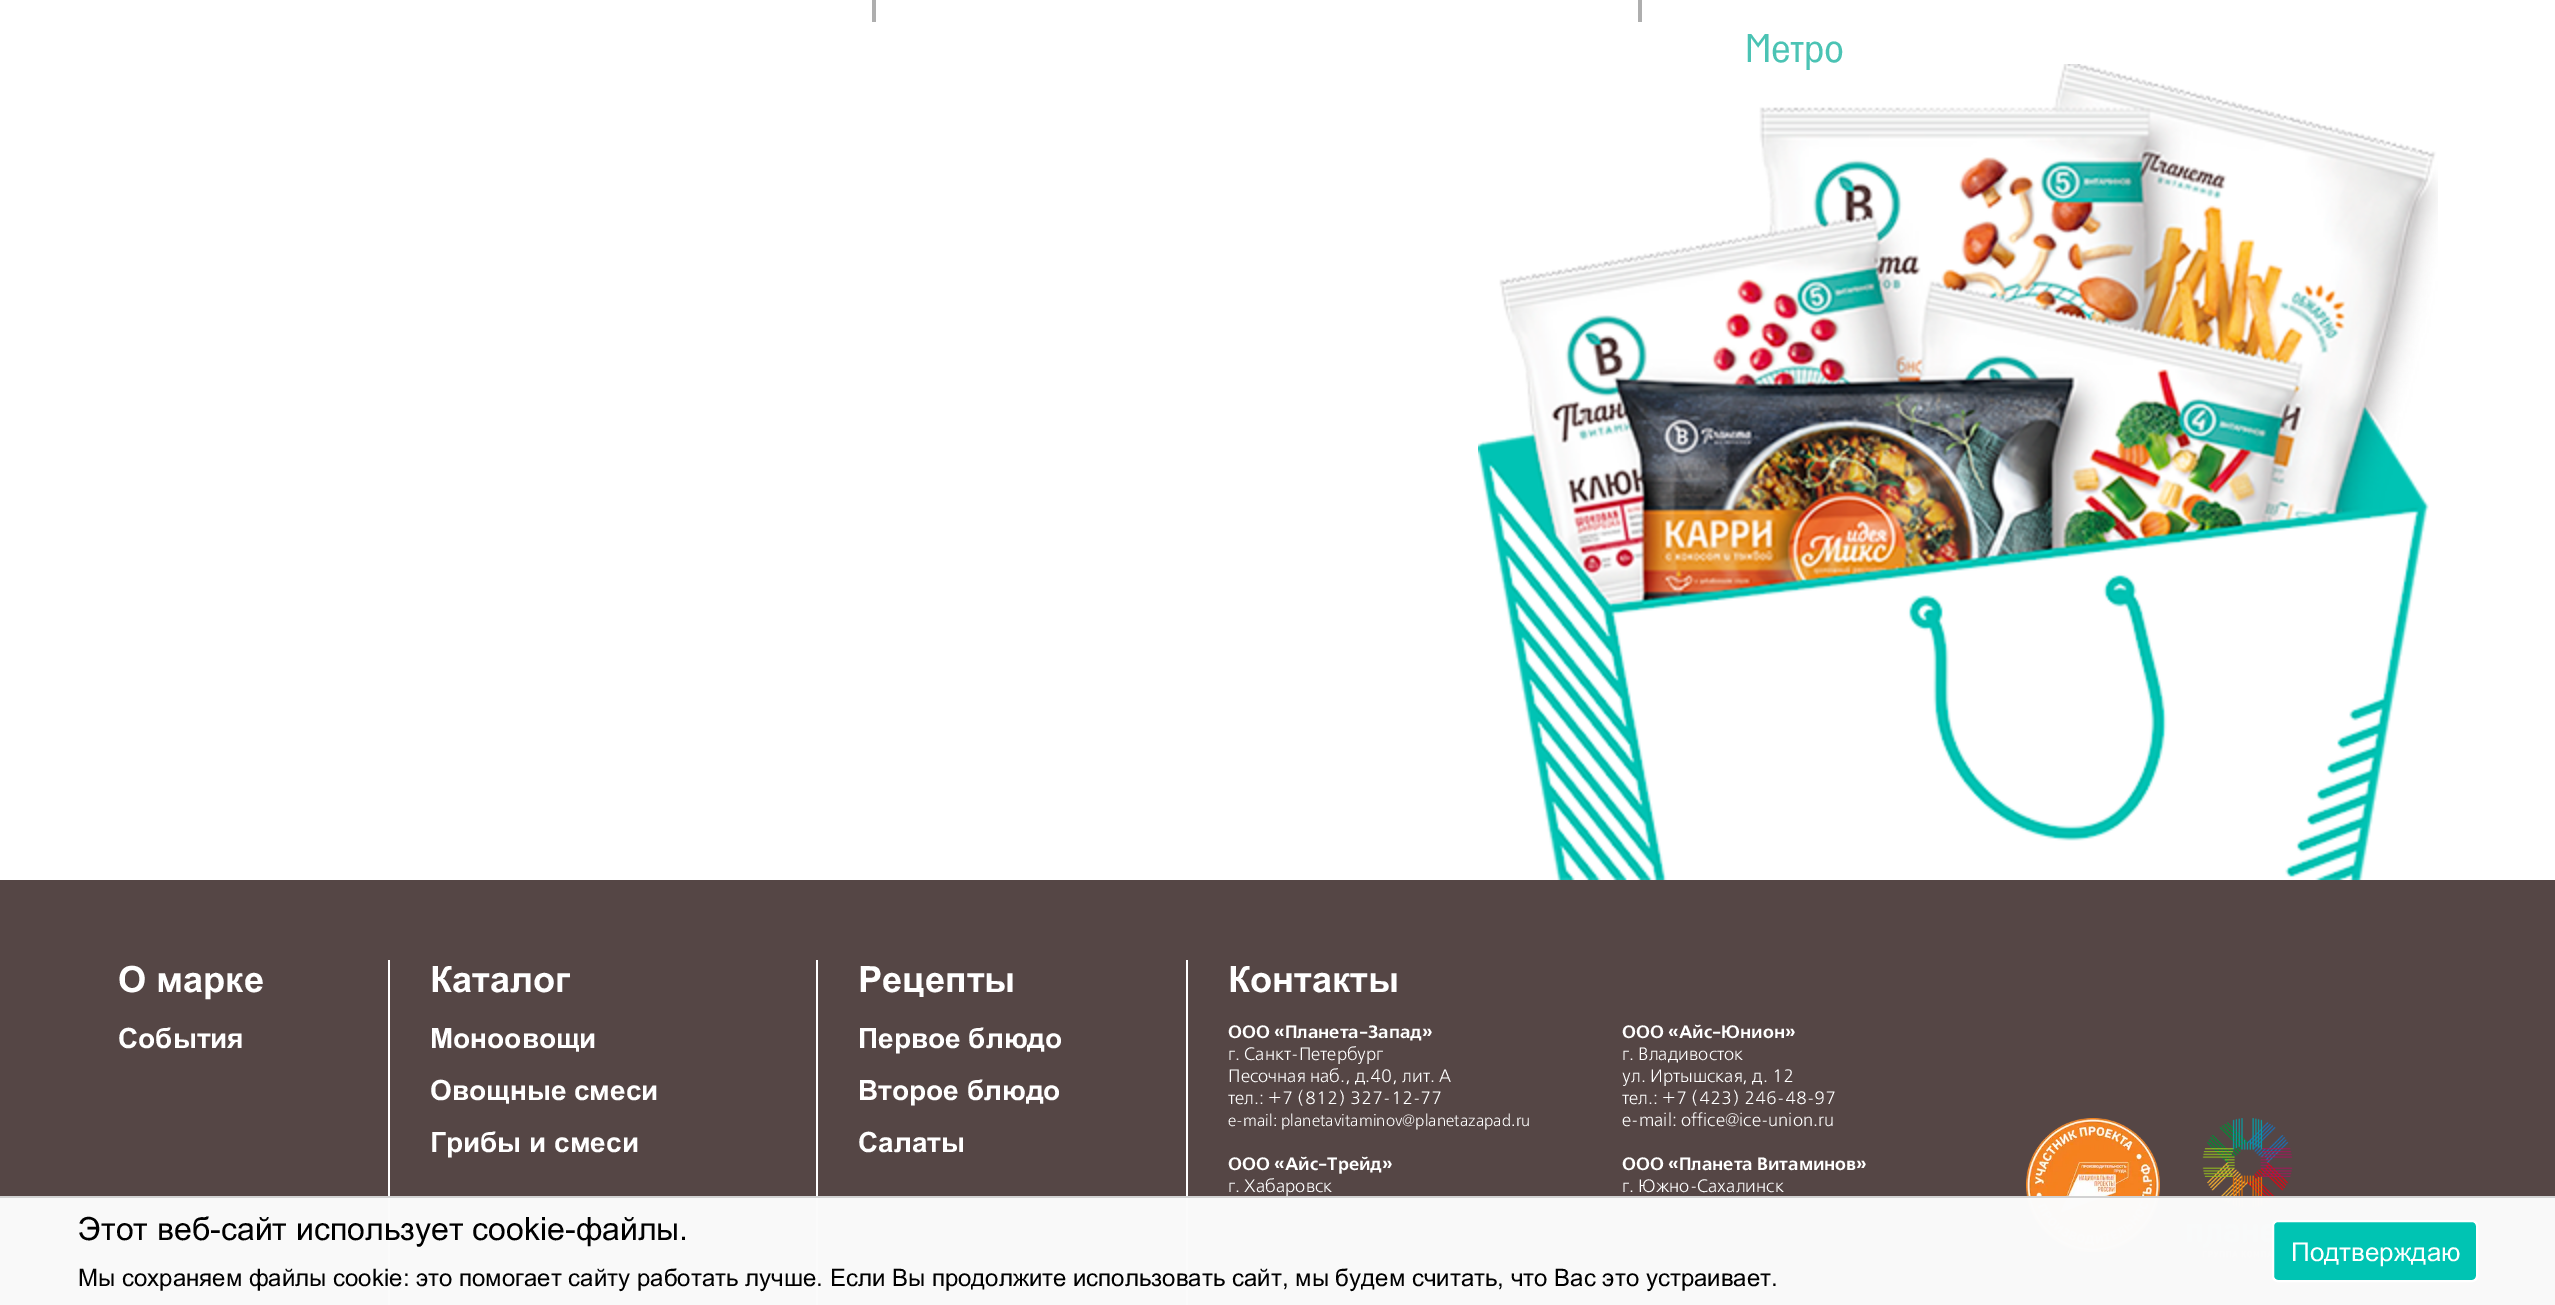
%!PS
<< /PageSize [2555 1305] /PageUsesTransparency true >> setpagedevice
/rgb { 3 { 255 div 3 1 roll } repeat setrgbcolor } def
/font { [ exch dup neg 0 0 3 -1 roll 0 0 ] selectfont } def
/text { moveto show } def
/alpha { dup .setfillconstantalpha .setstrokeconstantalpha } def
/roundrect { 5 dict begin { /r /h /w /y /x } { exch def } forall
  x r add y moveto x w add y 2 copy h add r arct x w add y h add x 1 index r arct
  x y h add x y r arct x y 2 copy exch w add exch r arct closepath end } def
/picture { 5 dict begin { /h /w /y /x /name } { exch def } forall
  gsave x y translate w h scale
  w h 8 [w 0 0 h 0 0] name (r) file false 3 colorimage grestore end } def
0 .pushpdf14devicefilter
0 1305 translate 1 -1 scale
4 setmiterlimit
255 255 255 rgb
0 0 2555 1305 rectfill
(img_01.rgb) 1478 64 960 816 picture
174 174 174 rgb
872 0 4 22 rectfill
1638 0 4 22 rectfill
85 70 69 rgb
0 880 2555 425 rectfill
255 255 255 rgb
388 960 2 345 rectfill
816 960 2 345 rectfill
1186 960 2 345 rectfill
(img_02.rgb) 2026 1118 134 134 picture
(img_03.rgb) 2186 1118 107 140 picture
0.9 alpha
251 251 251 rgb
0 1198 2555 107 rectfill
1 alpha
255 255 255 rgb
2 setlinewidth
2273 1221 204 60 5 roundrect stroke
0.9 alpha
251 251 251 rgb
0 1198 2555 107 rectfill
1 alpha
210 210 210 rgb
0 1196 2555 2 rectfill
0 196 179 rgb
2273 1221 204 60 5 roundrect gsave fill grestore
255 255 255 rgb
stroke
/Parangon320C-Regular 40 font
75 195 180 rgb
1745 62 moveto -0.5 0 (Метро) ashow
/Arial-Bold 36.25 font
255 255 255 rgb
(О марке) 118 992 text
/Arial-Bold 28 font
(События) 118 1048 text
/Arial-Bold 36.25 font
(Каталог) 430 992 text
/Arial-Bold 28 font
(Моноовощи) 430 1048 text
(Овощные смеси) 430 1100 text
(Грибы и смеси) 430 1152 text
/Arial-Bold 36.25 font
(Рецепты) 858 992 text
/Arial-Bold 28 font
(Первое блюдо) 858 1048 text
(Второе блюдо) 858 1100 text
(Салаты) 858 1152 text
/Arial-Bold 36.25 font
(Контакты) 1228 992 text
/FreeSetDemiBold-SemiBold 18 font
(ООО «Планета-Запад») 1228 1038 text
/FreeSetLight-Light 18 font
(г. Санкт-Петербург) 1228 1060 text
(Песочная наб., д.40, лит. А) 1228 1082 text
(тел.: +7 \(812\) 327-12-77) 1228 1104 text
/FreeSetLight-Light 16.25 font
(e-mail: planetavitaminov@planetazapad.ru) 1228 1126 text
/FreeSetDemiBold-SemiBold 18 font
(ООО «Айс-Трейд») 1228 1170 text
/FreeSetLight-Light 18 font
(г. Хабаровск) 1228 1192 text
/FreeSetDemiBold-SemiBold 18 font
(ООО «Айс-Юнион») 1622 1038 text
/FreeSetLight-Light 18 font
(г. Владивосток) 1622 1060 text
(ул. Иртышская, д. 12) 1622 1082 text
(тел.: +7 \(423\) 246-48-97) 1622 1104 text
(e-mail: office@ice-union.ru) 1622 1126 text
/FreeSetDemiBold-SemiBold 18 font
(ООО «Планета Витаминов») 1622 1170 text
/FreeSetLight-Light 18 font
(г. Южно-Сахалинск) 1622 1192 text
/Arial-Regular 32 font
0 0 0 rgb
(Этот веб-сайт использует cookie-файлы.) 78 1240 text
/Arial-Regular 24 font
(Мы cохраняем файлы cookie: это помогает сайту работать лучше. Если Вы продолжите использовать сайт, мы будем считать, что Вас это устраивает.) 78 1286 text
/Arial-Regular 26 font
255 255 255 rgb
(Подтверждаю) 2291 1261 text
.poppdf14devicefilter showpage
